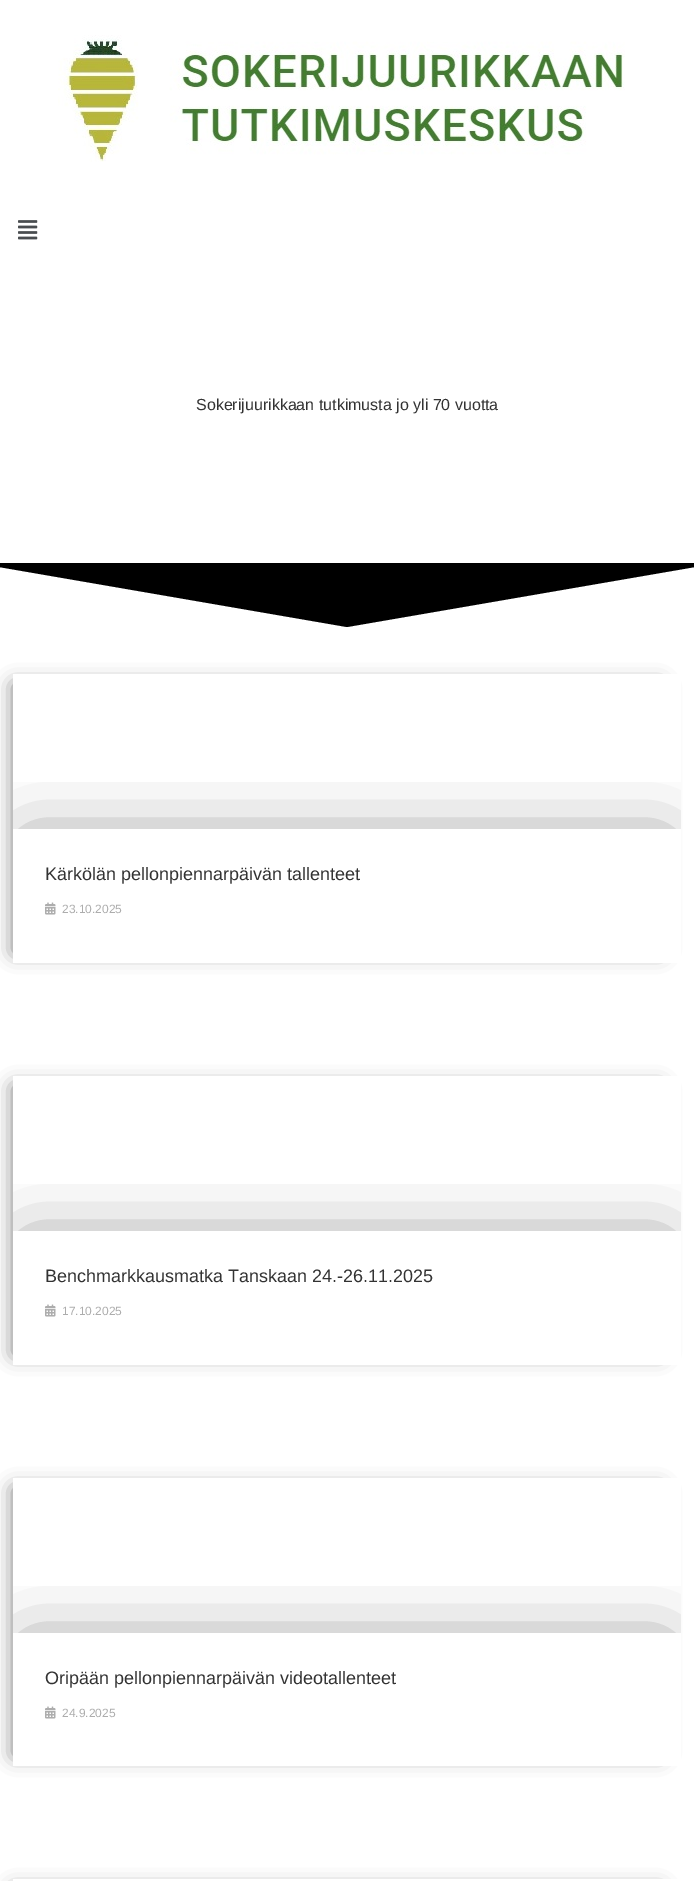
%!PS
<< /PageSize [694 1881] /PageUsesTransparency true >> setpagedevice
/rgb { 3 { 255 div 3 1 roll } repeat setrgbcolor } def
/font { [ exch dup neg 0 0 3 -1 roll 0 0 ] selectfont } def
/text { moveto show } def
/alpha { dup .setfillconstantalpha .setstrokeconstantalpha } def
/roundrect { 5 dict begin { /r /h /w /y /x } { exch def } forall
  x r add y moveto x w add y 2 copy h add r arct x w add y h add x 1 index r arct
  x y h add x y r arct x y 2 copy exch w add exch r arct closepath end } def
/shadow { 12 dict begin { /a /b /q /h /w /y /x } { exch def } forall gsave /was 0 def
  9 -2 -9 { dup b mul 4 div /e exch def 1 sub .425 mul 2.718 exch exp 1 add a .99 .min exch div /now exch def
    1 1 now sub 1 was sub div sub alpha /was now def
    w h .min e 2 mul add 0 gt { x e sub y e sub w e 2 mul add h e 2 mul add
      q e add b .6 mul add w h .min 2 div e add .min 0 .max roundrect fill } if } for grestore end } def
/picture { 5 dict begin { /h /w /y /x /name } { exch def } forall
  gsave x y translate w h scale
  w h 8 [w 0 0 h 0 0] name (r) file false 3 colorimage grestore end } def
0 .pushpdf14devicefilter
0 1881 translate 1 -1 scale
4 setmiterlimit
255 255 255 rgb
0 0 694 1881 rectfill
(img_01.rgb) 58 35 567 127 picture
(img_02.rgb) 18 220 20 20 picture
0 0 0 rgb
347 627 moveto -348 -60 rlineto 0 -4 rlineto 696 0 rlineto 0 4 rlineto closepath fill
gsave
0 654 moveto 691 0 rlineto 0 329 rlineto -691 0 rlineto closepath 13 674 moveto 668 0 rlineto 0 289 rlineto -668 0 rlineto closepath eoclip newpath
13 684 648 269 0 9.5 0.5 shadow
grestore
gsave
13 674 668 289 rectclip
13 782 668 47 rectclip
28 844 638 104 0 35.5 0.5 shadow
grestore
(img_03.rgb) 45 902 11 13 picture
gsave
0 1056 moveto 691 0 rlineto 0 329 rlineto -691 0 rlineto closepath 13 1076 moveto 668 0 rlineto 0 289 rlineto -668 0 rlineto closepath eoclip newpath
13 1086 648 269 0 9.5 0.5 shadow
grestore
gsave
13 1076 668 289 rectclip
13 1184 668 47 rectclip
28 1246 638 104 0 35.5 0.5 shadow
grestore
(img_03.rgb) 45 1304 11 13 picture
gsave
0 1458 moveto 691 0 rlineto 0 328 rlineto -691 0 rlineto closepath 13 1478 moveto 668 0 rlineto 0 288 rlineto -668 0 rlineto closepath eoclip newpath
13 1488 648 268 0 9.5 0.5 shadow
grestore
gsave
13 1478 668 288 rectclip
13 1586 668 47 rectclip
28 1648 638 103 0 35.5 0.5 shadow
grestore
(img_03.rgb) 45 1706 11 13 picture
gsave
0 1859 moveto 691 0 rlineto 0 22 rlineto -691 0 rlineto closepath 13 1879 moveto 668 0 rlineto 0 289 rlineto -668 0 rlineto closepath eoclip newpath
13 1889 648 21 0 9.5 0.5 shadow
grestore
/LiberationSans-Regular 16 font
51 51 51 rgb
(Sokerijuurikkaan tutkimusta jo yli 70 vuotta) 196 410 text
/LiberationSans-Regular 18 font
(Kärkölän pellonpiennarpäivän tallenteet) 45 880 text
/LiberationSans-Regular 12 font
173 173 173 rgb
(23.10.2025) 62 913 text
/LiberationSans-Regular 18 font
51 51 51 rgb
(Benchmarkkausmatka Tanskaan 24.-26.11.2025) 45 1282 text
/LiberationSans-Regular 12 font
173 173 173 rgb
(17.10.2025) 62 1315 text
/LiberationSans-Regular 18 font
51 51 51 rgb
(Oripään pellonpiennarpäivän videotallenteet) 45 1684 text
/LiberationSans-Regular 12 font
173 173 173 rgb
(24.9.2025) 62 1717 text
.poppdf14devicefilter showpage
